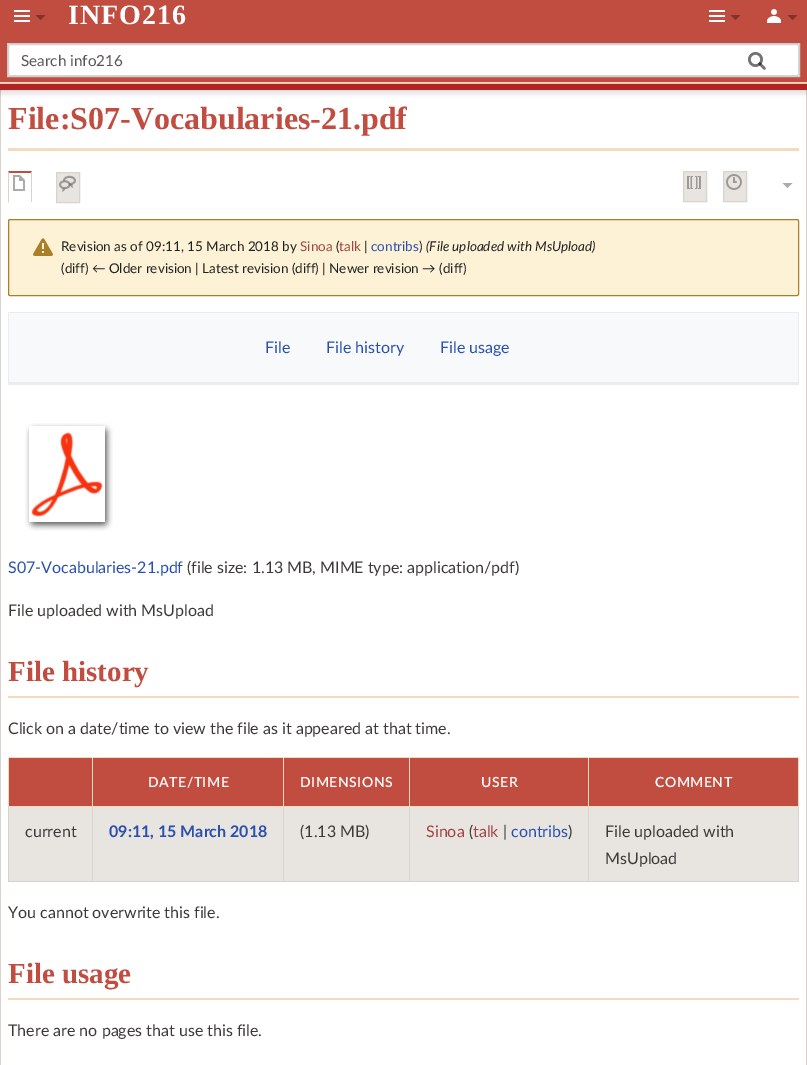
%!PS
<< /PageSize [807 1065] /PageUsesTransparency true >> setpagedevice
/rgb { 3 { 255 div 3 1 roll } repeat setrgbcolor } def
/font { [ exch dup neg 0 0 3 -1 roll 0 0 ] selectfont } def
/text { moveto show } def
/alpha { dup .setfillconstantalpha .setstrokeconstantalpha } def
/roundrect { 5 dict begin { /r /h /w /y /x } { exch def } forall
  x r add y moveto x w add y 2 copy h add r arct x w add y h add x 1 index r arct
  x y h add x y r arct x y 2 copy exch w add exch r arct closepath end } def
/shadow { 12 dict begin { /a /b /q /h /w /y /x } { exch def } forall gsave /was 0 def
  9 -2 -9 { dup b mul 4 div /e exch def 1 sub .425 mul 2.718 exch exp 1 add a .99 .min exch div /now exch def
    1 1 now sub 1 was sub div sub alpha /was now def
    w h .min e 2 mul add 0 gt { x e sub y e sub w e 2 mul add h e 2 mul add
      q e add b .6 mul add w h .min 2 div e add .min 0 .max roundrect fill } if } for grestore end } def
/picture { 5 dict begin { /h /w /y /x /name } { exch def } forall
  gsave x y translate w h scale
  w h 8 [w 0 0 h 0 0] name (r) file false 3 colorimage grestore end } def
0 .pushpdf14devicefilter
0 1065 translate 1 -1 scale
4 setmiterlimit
193 76 64 rgb
0 0 807 1065 rectfill
244 219 191 rgb
0 82 807 2 rectfill
(img_01.rgb) 767 9 14 14 picture
129 51 43 rgb
797.5 15 moveto -5 5 rlineto -5 -5 rlineto closepath fill
255 255 255 rgb
7.5 43.5 moveto 792 0 rlineto 0 33 rlineto -792 0 rlineto closepath gsave fill grestore
200 204 209 rgb
stroke
217 211 207 rgb
8.5 44.5 790 31 1.5 roundrect stroke
(img_02.rgb) 748 52 18 18 picture
(img_03.rgb) 748 52 18 18 picture
0.5 84.5 806 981 rectstroke
255 255 255 rgb
1 90 805 975 rectfill
0 0 0 rgb
0 84 807 6 0 1 0.2 shadow
-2 85 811 10 0 1.5 0.07 shadow
179 36 36 rgb
0 84 807 6 rectfill
(img_04.rgb) 14 10 16 12 picture
129 51 43 rgb
45.5 15 moveto -5 5 rlineto -5 -5 rlineto closepath fill
(img_04.rgb) 709 10 16 12 picture
740.5 15 moveto -5 5 rlineto -5 -5 rlineto closepath fill
244 219 191 rgb
8 148 791 3 rectfill
193 76 64 rgb
8 171 moveto 24 0 rlineto -1 2 rlineto -22 0 rlineto closepath fill
217 211 207 rgb
32 171 moveto 0 32 rlineto -1 -1 rlineto 0 -29 rlineto closepath fill
255 255 255 rgb
31 202 1 1 rectfill
217 211 207 rgb
8 203 moveto 0 -32 rlineto 1 2 rlineto 0 29 rlineto closepath fill
(img_05.rgb) 13 175 12 16 picture
232 228 224 rgb
56.5 172.5 moveto 23 0 rlineto 0 30 rlineto -23 0 rlineto closepath gsave fill grestore
217 211 207 rgb
stroke
(img_06.rgb) 59 175 17 17 picture
232 228 224 rgb
683.5 171.5 moveto 23 0 rlineto 0 30 rlineto -23 0 rlineto closepath gsave fill grestore
217 211 207 rgb
stroke
(img_07.rgb) 687 176 14 13 picture
232 228 224 rgb
723.5 171.5 moveto 23 0 rlineto 0 30 rlineto -23 0 rlineto closepath gsave fill grestore
217 211 207 rgb
stroke
(img_08.rgb) 726 174 16 16 picture
171 171 171 rgb
792.5 183 moveto -5 5 rlineto -5 -5 rlineto closepath fill
253 242 213 rgb
8.5 219.5 790 76 1.5 roundrect gsave fill grestore
171 127 42 rgb
stroke
(img_09.rgb) 33 238 20 18 picture
248 249 250 rgb
9 313 789 69 rectfill
234 236 240 rgb
8 312 791 1 rectfill
798 312 1 73 rectfill
8 382 791 3 rectfill
8 312 1 73 rectfill
(img_10.rgb) 25 423 88 108 picture
244 219 191 rgb
8 696 791 2 rectfill
217 211 207 rgb
798 807 1 75 rectfill
8 881 791 1 rectfill
8 807 1 75 rectfill
193 76 64 rgb
9 758 83 48 rectfill
244 219 191 rgb
588 757 211 1 rectfill
798 757 1 50 rectfill
232 228 224 rgb
9 807 789 74 rectfill
217 211 207 rgb
588 806 1 76 rectfill
244 219 191 rgb
588 806 211 1 rectfill
588 757 1 50 rectfill
409 757 180 1 rectfill
217 211 207 rgb
409 806 1 76 rectfill
244 219 191 rgb
409 806 180 1 rectfill
409 757 1 50 rectfill
283 757 127 1 rectfill
217 211 207 rgb
283 806 1 76 rectfill
244 219 191 rgb
283 806 127 1 rectfill
283 757 1 50 rectfill
92 757 192 1 rectfill
217 211 207 rgb
92 806 1 76 rectfill
244 219 191 rgb
92 806 192 1 rectfill
92 757 1 50 rectfill
8 757 85 1 rectfill
8 806 85 1 rectfill
8 757 1 50 rectfill
193 76 64 rgb
93 758 190 48 rectfill
284 758 125 48 rectfill
410 758 178 48 rectfill
589 758 209 48 rectfill
244 219 191 rgb
8 998 791 2 rectfill
/LiberationSerif-Bold 28 font
255 255 255 rgb
68 24 moveto 1 0 (INFO216) ashow
/Lato-Regular 15.25 font
90 85 85 rgb
(Search info216) 21 66 text
/LiberationSerif-Bold 32 font
193 76 64 rgb
(File:S07-Vocabularies-21.pdf) 8 129 text
/Lato-Regular 13.45 font
32 33 34 rgb
(Revision as of 09:11, 15 March 2018 by) 61 251 text
159 68 68 rgb
(Sinoa) 300 251 text
32 33 34 rgb
(\() 336 251 text
159 68 68 rgb
(talk) 339 251 text
32 33 34 rgb
(|) 364 251 text
42 80 173 rgb
(contribs) 371 251 text
32 33 34 rgb
(\)) 419 251 text
/Lato-Italic 13.45 font
(\(File uploaded with MsUpload\)) 426 251 text
/Lato-Regular 13.45 font
(\(diff\) ← Older revision | Latest revision \(diff\) | Newer revision → \(diff\)) 61 273 text
/Lato-Regular 16 font
42 80 173 rgb
(File) 265 353 text
(File history) 326 353 text
(File usage) 440 353 text
(S07-Vocabularies-21.pdf) 8 573 text
61 57 57 rgb
(\(file size: 1.13 MB, MIME type: application/pdf\)) 187 573 text
(File uploaded with MsUpload) 8 616 text
/LiberationSerif-Bold 29 font
193 76 64 rgb
(File history) 8 681 text
/Lato-Regular 16 font
61 57 57 rgb
(Click on a date/time to view the file as it appeared at that time.) 8 734 text
/Lato-SemiBold 14 font
255 255 255 rgb
148 787 moveto 0.5 0 (DATE/TIME) ashow
300 787 moveto 0.5 0 (DIMENSIONS) ashow
481 787 moveto 0.5 0 (USER) ashow
655 787 moveto 0.5 0 (COMMENT) ashow
/Lato-Regular 16 font
61 57 57 rgb
(current) 25 837 text
/Lato-Bold 16 font
42 80 173 rgb
(09:11, 15 March 2018) 109 837 text
/Lato-Regular 16 font
61 57 57 rgb
(\(1.13 MB\)) 300 837 text
159 68 68 rgb
(Sinoa) 426 837 text
61 57 57 rgb
(\() 469 837 text
159 68 68 rgb
(talk) 473 837 text
61 57 57 rgb
(|) 503 837 text
42 80 173 rgb
(contribs) 511 837 text
61 57 57 rgb
(\)) 568 837 text
(File uploaded with) 605 837 text
(MsUpload) 605 864 text
(You cannot overwrite this file.) 8 918 text
/LiberationSerif-Bold 29 font
193 76 64 rgb
(File usage) 8 983 text
/Lato-Regular 16 font
61 57 57 rgb
(There are no pages that use this file.) 8 1036 text
.poppdf14devicefilter showpage
